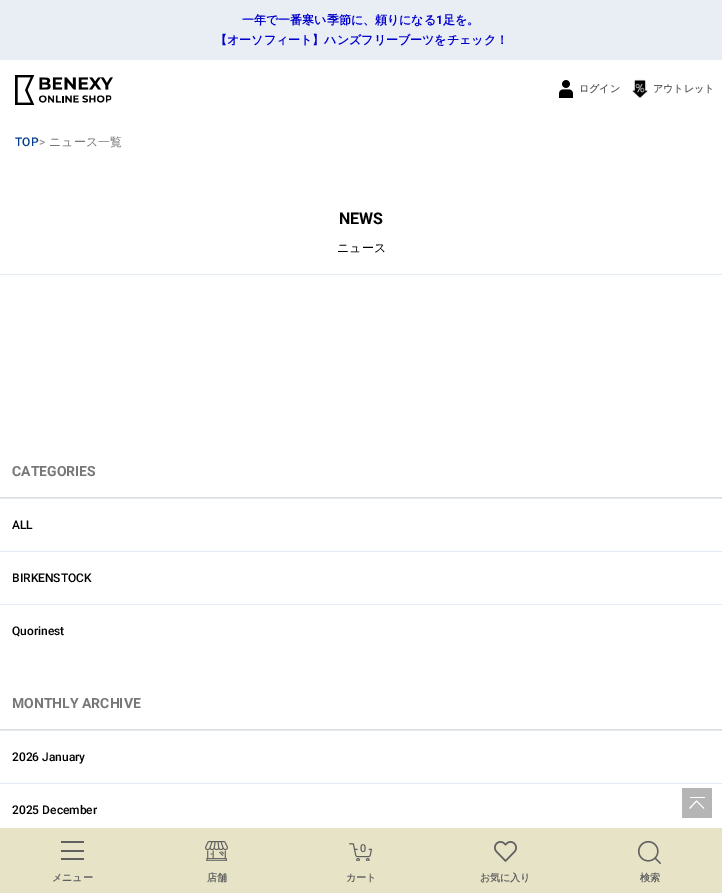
%!PS
<< /PageSize [722 893] >> setpagedevice
/rgb { 3 { 255 div 3 1 roll } repeat setrgbcolor } def
/font { [ exch dup neg 0 0 3 -1 roll 0 0 ] selectfont } def
/text { moveto show } def
/picture { 5 dict begin { /h /w /y /x /name } { exch def } forall
  gsave x y translate w h scale
  w h 8 [w 0 0 h 0 0] name (r) file false 3 colorimage grestore end } def
0 893 translate 1 -1 scale
4 setmiterlimit
255 255 255 rgb
0 0 722 893 rectfill
233 238 244 rgb
0 0 722 60 rectfill
(img_01.rgb) 15 75 98 30 picture
(img_02.rgb) 559 80 14 18 picture
(img_03.rgb) 632 79 16 19 picture
228 235 243 rgb
0 274 722 1 rectfill
221 221 221 rgb
0 497 722 1 rectfill
228 235 243 rgb
0 498 722 1 rectfill
0 551 722 1 rectfill
0 604 722 1 rectfill
221 221 221 rgb
0 729 722 1 rectfill
228 235 243 rgb
0 730 722 1 rectfill
0 783 722 1 rectfill
181 181 181 rgb
682 788 30 30 rectfill
255 255 255 rgb
689.5 808.5 moveto 7 -7.5 rlineto 7.5 7.5 rlineto stroke
690 797 15 1 rectfill
231 227 198 rgb
0 828 722 65 rectfill
96 96 96 rgb
61 841 23 2 rectfill
61 858 23 2 rectfill
61 850 23 2 rectfill
(img_04.rgb) 205 841 23 20 picture
(img_05.rgb) 349 843 23 18 picture
(img_06.rgb) 494 841 23 21 picture
(img_07.rgb) 638 841 23 23 picture
/WenQuanYiZenHei-Bold 12 font
0 0 205 rgb
(一年で一番寒い季節に、頼りになる) 242 24 text
/Roboto-Bold 12 font
(1) 436 24 text
/WenQuanYiZenHei-Bold 12 font
(足を。) 443 24 text
(【オーソフィート】ハンズフリーブーツをチェック！) 215 44 text
/WenQuanYiZenHei-Bold 10 font
96 96 96 rgb
(ログイン) 579 92 text
(アウトレット) 653 92 text
/Roboto-Medium 12 font
0 61 141 rgb
(TOP) 15 146 text
150 152 153 rgb
(>) 39 146 text
/WenQuanYiZenHei-Medium 12 font
119 119 119 rgb
(ニュース一覧) 49 146 text
/Roboto-Bold 16 font
0 0 0 rgb
(NEWS) 339 224 text
/WenQuanYiZenHei-Medium 12 font
(ニュース) 337 252 text
/Roboto-Bold 14 font
119 119 119 rgb
(CATEGORIES) 12 476 text
/Roboto-Medium 12 font
0 0 0 rgb
(ALL) 12 529 text
(BIRKENSTOCK) 12 582 text
(Quorinest) 12 635 text
/Roboto-Bold 14 font
119 119 119 rgb
(MONTHLY ARCHIVE) 12 708 text
/Roboto-Medium 12 font
0 0 0 rgb
(2026 January) 12 761 text
(2025 December) 12 814 text
/WenQuanYiZenHei-Bold 10 font
96 96 96 rgb
(メニュー) 52 881 text
(店舗) 207 881 text
/Roboto-Medium 11 font
(0) 360 852 text
/WenQuanYiZenHei-Bold 10 font
(カート) 346 881 text
(お気に入り) 480 881 text
(検索) 640 881 text
showpage
